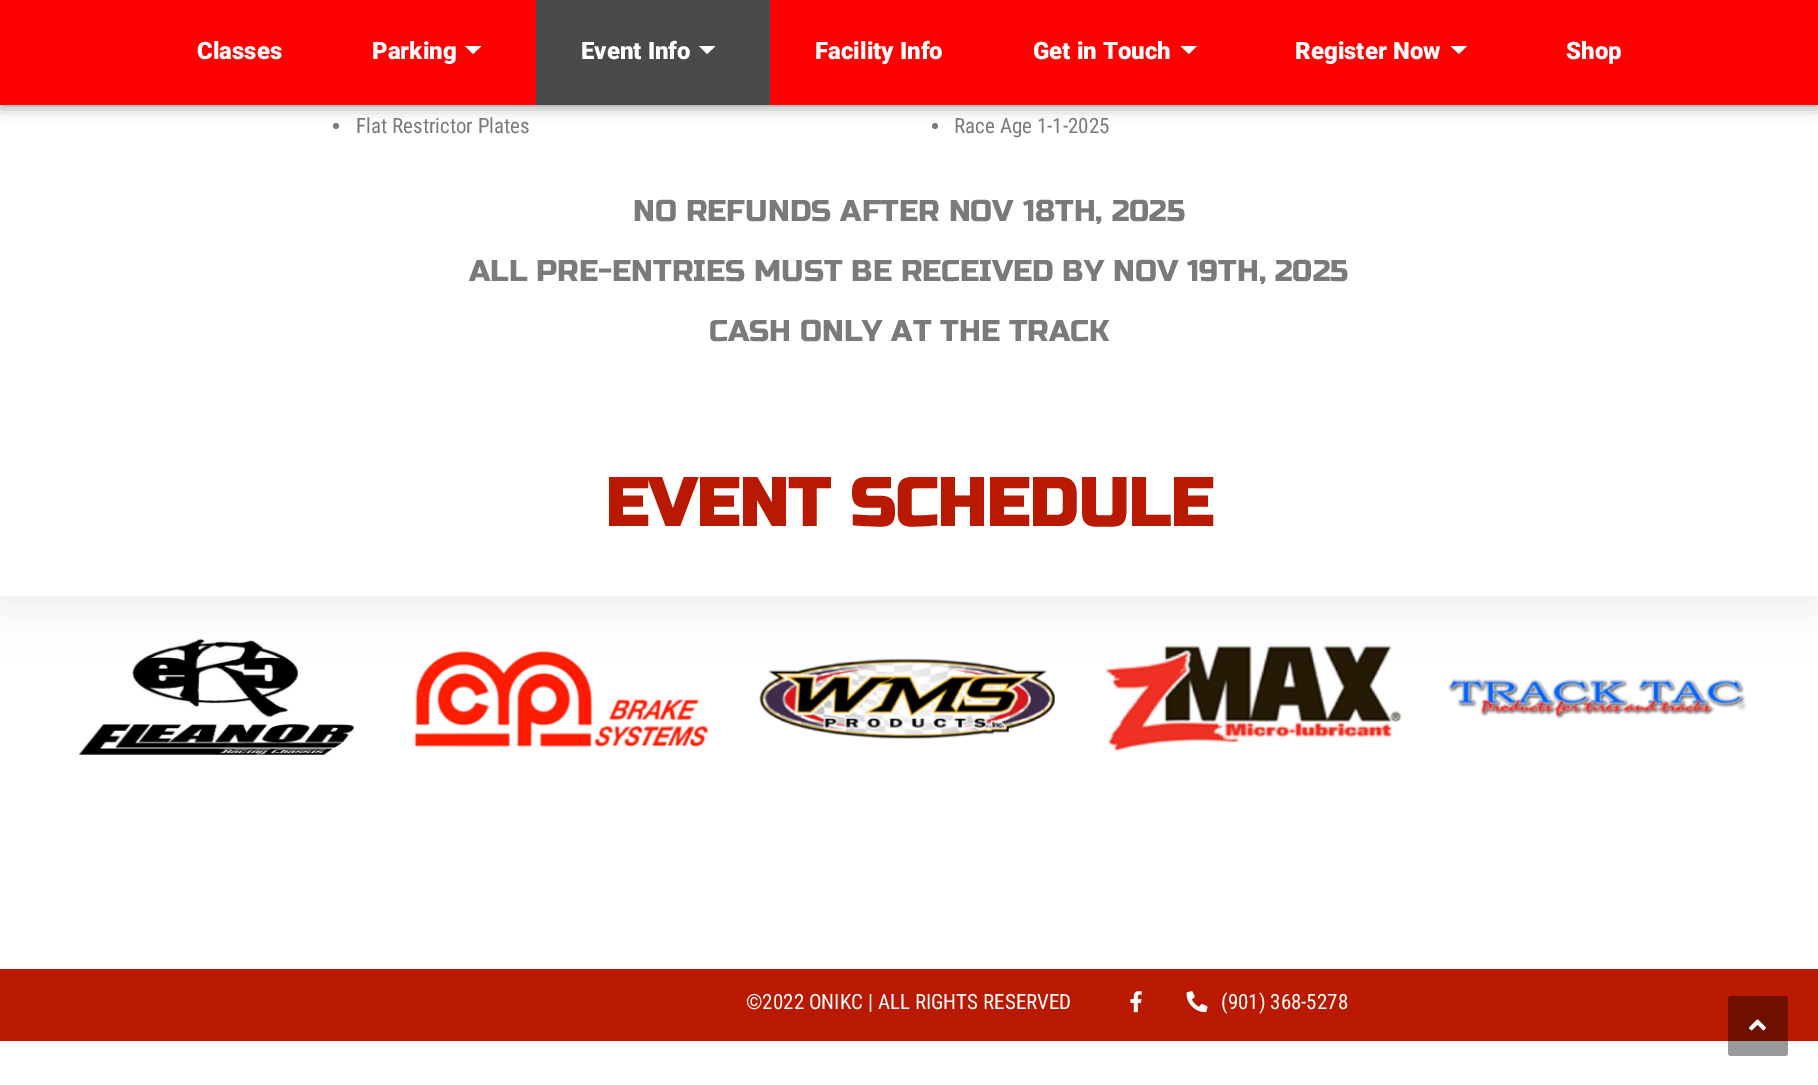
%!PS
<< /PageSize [1818 1085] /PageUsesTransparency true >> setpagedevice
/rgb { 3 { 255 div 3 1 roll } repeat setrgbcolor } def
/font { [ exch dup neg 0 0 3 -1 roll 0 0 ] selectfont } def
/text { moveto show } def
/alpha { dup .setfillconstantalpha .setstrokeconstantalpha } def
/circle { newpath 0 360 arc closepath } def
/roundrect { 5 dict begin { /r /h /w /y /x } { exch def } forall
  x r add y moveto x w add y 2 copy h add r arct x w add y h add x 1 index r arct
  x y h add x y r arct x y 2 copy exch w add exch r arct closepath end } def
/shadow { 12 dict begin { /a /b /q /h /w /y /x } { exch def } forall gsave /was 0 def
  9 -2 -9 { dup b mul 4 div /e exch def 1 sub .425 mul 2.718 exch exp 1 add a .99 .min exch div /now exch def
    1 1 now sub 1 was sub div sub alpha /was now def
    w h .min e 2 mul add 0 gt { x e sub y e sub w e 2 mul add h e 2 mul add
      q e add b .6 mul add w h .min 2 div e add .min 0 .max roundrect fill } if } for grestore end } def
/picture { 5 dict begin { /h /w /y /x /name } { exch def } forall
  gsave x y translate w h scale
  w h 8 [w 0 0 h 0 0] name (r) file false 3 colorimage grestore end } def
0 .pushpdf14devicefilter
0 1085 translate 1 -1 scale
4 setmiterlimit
255 255 255 rgb
0 0 1818 1085 rectfill
(img_01.rgb) 78 637 277 118 picture
(img_02.rgb) 414 651 295 96 picture
(img_03.rgb) 759 658 296 81 picture
(img_04.rgb) 1105 645 297 107 picture
(img_05.rgb) 1448 678 299 41 picture
0 0 0 rgb
0 -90 1818 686 0 30 0.1 shadow
255 255 255 rgb
0 105 1818 491 rectfill
122 122 122 rgb
336 126 3 circle fill
935 126 3 circle fill
0 0 0 rgb
0 0 1818 105 0 7.5 0.5 shadow
255 0 0 rgb
0 0 1818 105 rectfill
255 255 255 rgb
465 46 moveto 16.5 0 rlineto -8.5 8 rlineto closepath fill
75 74 74 rgb
536 0 234 105 rectfill
255 255 255 rgb
699 46 moveto 16.5 0 rlineto -8.5 8 rlineto closepath fill
1180.5 46 moveto 16.5 0 rlineto -8 8 rlineto closepath fill
1450.5 46 moveto 16.5 0 rlineto -8 8 rlineto closepath fill
185 25 0 rgb
0 969 1818 72 rectfill
(img_06.rgb) 1130 991 12 22 picture
(img_07.rgb) 1186 991 22 22 picture
0.4 alpha
0 0 0 rgb
1728 996 60 60 3 roundrect fill
1 alpha
(img_08.rgb) 1749 1019 17 12 picture
/Roboto-Black 24 font
255 255 255 rgb
(Classes) 197 59 text
(Parking) 372 59 text
(Event Info) 581 59 text
(Facility Info) 815 59 text
(Get in Touch) 1033 59 text
(Register Now) 1295 59 text
(Shop) 1566 59 text
/RobotoCondensed-Regular 21 font
122 122 122 rgb
(Flat Restrictor Plates) 356 133 text
(Race Age 1-1-2025) 954 133 text
/RussoOne-Regular 30 font
(NO REFUNDS AFTER NOV 18TH, 2025) 633 221 text
(ALL PRE-ENTRIES MUST BE RECEIVED BY NOV 19TH, 2025) 469 281 text
(CASH ONLY AT THE TRACK) 709 341 text
/RussoOne-Bold 67.5 font
185 25 0 rgb
(EVENT SCHEDULE) 605 526 text
/RobotoCondensed-Regular 21 font
255 255 255 rgb
(©2022 ONIKC | ALL RIGHTS RESERVED) 746 1009 text
(\(901\) 368-5278) 1221 1009 text
.poppdf14devicefilter showpage
